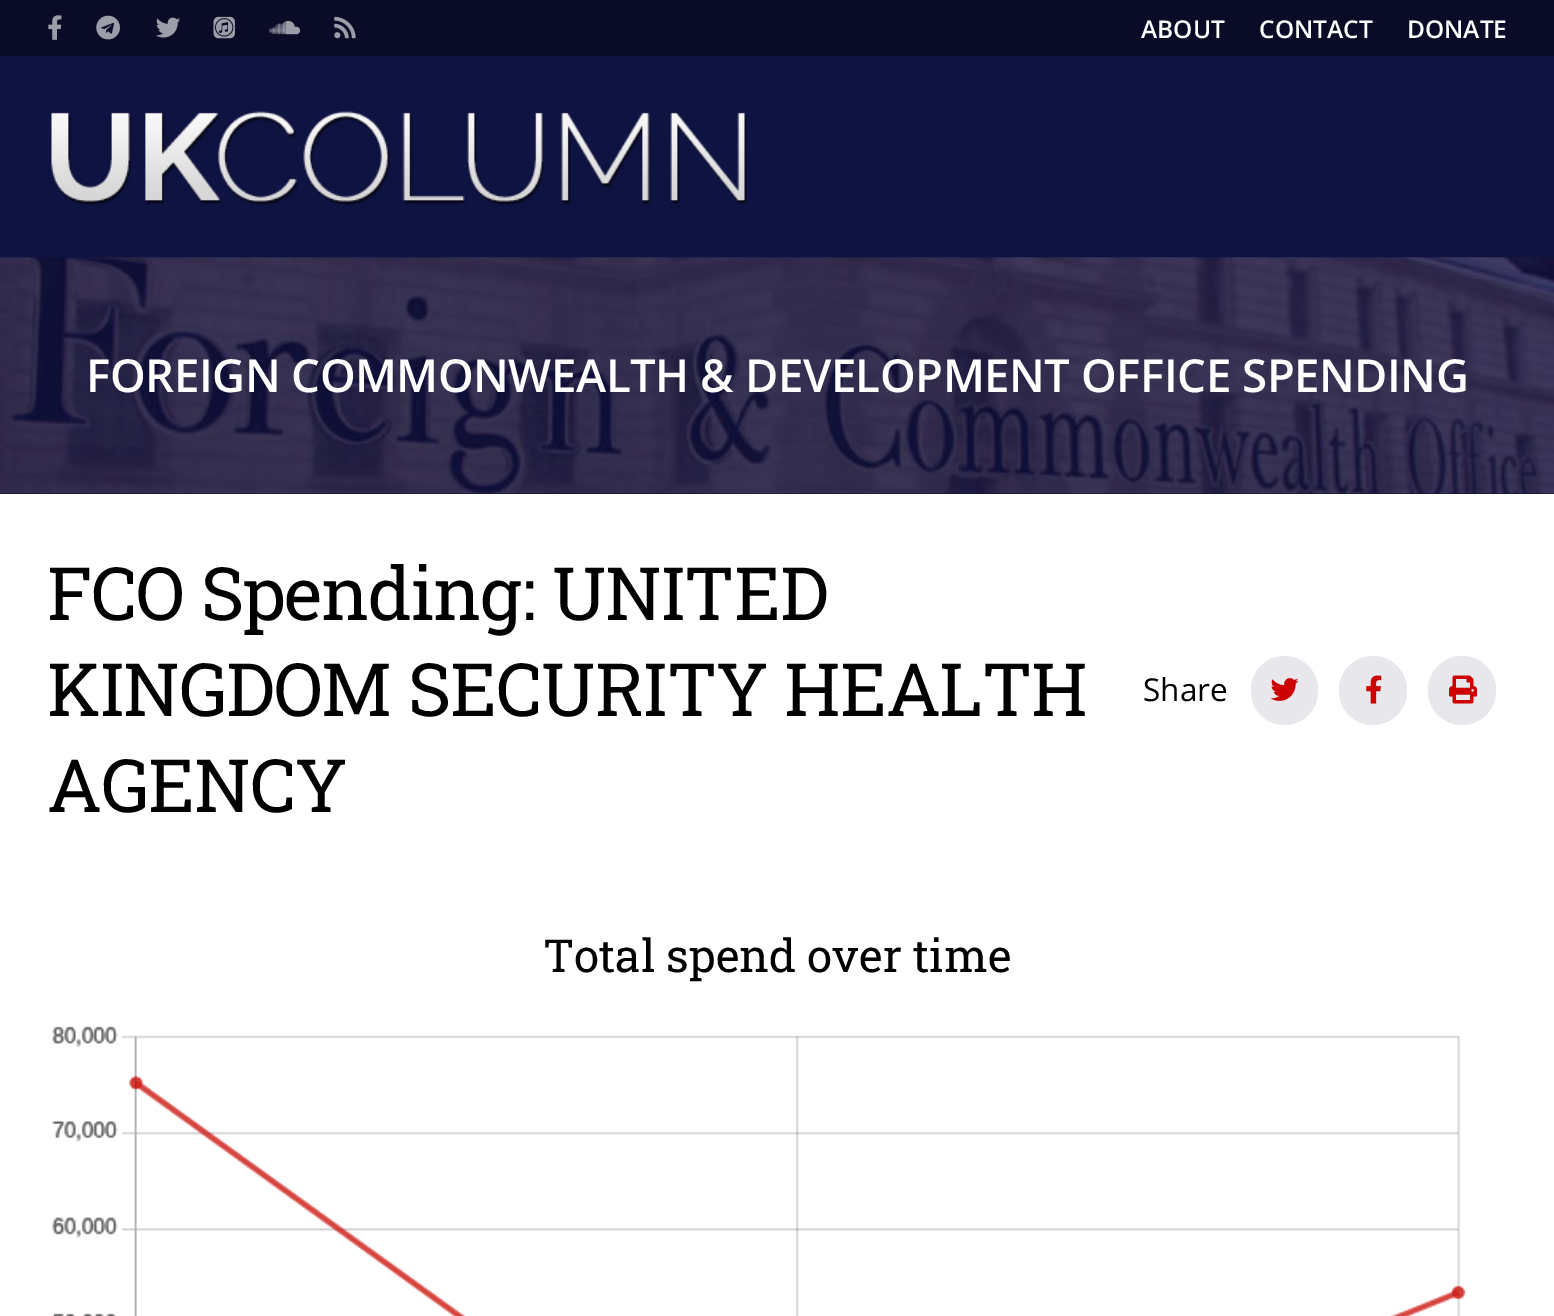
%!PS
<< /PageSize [1554 1316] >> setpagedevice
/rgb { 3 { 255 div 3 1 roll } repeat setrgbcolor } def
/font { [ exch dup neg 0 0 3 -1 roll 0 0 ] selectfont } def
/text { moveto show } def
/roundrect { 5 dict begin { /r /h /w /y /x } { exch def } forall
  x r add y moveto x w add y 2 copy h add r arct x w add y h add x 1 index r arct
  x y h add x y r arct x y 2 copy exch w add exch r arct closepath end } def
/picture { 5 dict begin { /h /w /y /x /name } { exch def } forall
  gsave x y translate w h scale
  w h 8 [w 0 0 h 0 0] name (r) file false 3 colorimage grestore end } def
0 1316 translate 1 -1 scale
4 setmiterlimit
255 255 255 rgb
0 0 1554 1316 rectfill
15 19 65 rgb
0 56 1554 438 rectfill
9 11 39 rgb
0 0 1554 56 rectfill
(img_01.rgb) 48 15 14 25 picture
(img_02.rgb) 96 15 24 25 picture
(img_03.rgb) 156 17 24 21 picture
(img_04.rgb) 213 16 22 23 picture
(img_05.rgb) 269 20 32 15 picture
(img_06.rgb) 334 16 22 23 picture
(img_07.rgb) 51 111 696 95 picture
(img_08.rgb) 0 257 1554 237 picture
231 231 236 rgb
1251 656 67 69 33.5 roundrect fill
(img_09.rgb) 1270 678 29 23 picture
1339 656 68 69 34 roundrect fill
(img_10.rgb) 1366 675 16 29 picture
1428 656 68 69 34 roundrect fill
(img_11.rgb) 1449 675 28 29 picture
(img_12.rgb) 52 1026 1414 290 picture
(img_13.rgb) 52 1026 1414 290 picture
/OpenSans-SemiBold 24.5 font
255 255 255 rgb
(ABOUT) 1141 38 text
(CONTACT) 1259 38 text
(DONATE) 1407 38 text
/OpenSans-SemiBold 45.5 font
86 392 moveto -0.45 0 (FOREIGN COMMONWEALTH & DEVELOPMENT OFFICE SPENDING) ashow
/RobotoSlab-Regular 73.5 font
0 0 0 rgb
47 620 moveto -1.15 0 (FCO Spending: UNITED) ashow
47 716 moveto -1.15 0 (KINGDOM SECURITY HEALTH) ashow
47 812 moveto -1.15 0 (AGENCY) ashow
/OpenSans-Regular 31.5 font
(Share) 1143 701 text
/RobotoSlab-Regular 45.5 font
(Total spend over time) 543 972 text
showpage
